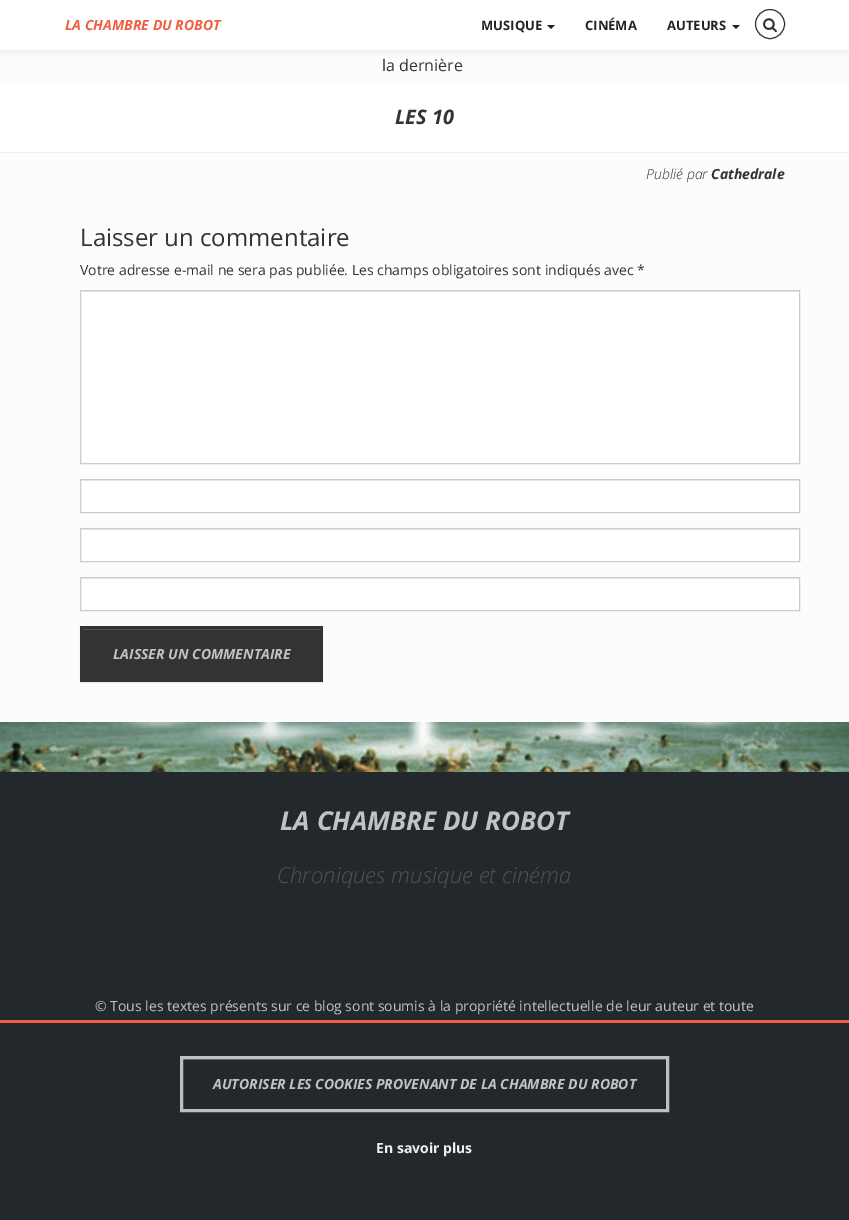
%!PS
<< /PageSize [849 1220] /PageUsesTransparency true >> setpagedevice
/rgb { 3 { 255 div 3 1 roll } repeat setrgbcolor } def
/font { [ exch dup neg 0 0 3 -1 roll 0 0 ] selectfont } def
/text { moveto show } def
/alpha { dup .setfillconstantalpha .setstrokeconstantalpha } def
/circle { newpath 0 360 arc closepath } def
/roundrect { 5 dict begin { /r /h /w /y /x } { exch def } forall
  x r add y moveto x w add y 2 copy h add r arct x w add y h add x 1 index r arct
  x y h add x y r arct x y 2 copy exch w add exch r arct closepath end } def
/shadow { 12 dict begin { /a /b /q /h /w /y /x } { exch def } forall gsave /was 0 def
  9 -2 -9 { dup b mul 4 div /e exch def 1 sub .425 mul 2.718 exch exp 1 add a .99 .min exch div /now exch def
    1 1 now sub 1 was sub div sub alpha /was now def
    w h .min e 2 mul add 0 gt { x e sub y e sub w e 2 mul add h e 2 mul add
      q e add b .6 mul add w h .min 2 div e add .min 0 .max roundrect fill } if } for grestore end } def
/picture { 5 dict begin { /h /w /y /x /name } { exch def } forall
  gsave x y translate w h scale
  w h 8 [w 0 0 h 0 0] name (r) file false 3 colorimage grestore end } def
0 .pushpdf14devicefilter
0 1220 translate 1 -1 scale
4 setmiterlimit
252 252 252 rgb
0 0 849 1220 rectfill
0 0 0 rgb
0 1 849 51 0 2.5 0.07 shadow
255 255 255 rgb
0 0 849 50 rectfill
244 244 244 rgb
0 50 849 1 rectfill
34 34 34 rgb
547 25 moveto 8 0 rlineto -4 4 rlineto closepath fill
732 25 moveto 8 0 rlineto -4 4 rlineto closepath fill
51 51 51 rgb
770 24 14.5 circle stroke
(img_01.rgb) 763 18 14 15 picture
255 255 255 rgb
0 83 849 69 rectfill
238 238 238 rgb
0 152 849 1 rectfill
255 255 255 rgb
81 292 718 171 rectfill
236 236 236 rgb
81 291 718 1 rectfill
204 204 204 rgb
80.5 290.5 719 173 rectstroke
255 255 255 rgb
81 481 718 31 rectfill
236 236 236 rgb
81 480 718 1 rectfill
204 204 204 rgb
80.5 479.5 719 33 rectstroke
255 255 255 rgb
81 530 718 31 rectfill
236 236 236 rgb
81 529 718 1 rectfill
204 204 204 rgb
80.5 528.5 719 33 rectstroke
255 255 255 rgb
81 579 718 31 rectfill
236 236 236 rgb
81 578 718 1 rectfill
204 204 204 rgb
80.5 577.5 719 33 rectstroke
0 0 0 rgb
80 627 243 56 0 0.5 0.07 shadow
51 51 51 rgb
80 626 243 56 rectfill
82 82 82 rgb
83 629 237 1 rectfill
(img_02.rgb) 0 722 849 50 picture
35 40 45 rgb
0 772 849 248 rectfill
0 1023 849 197 rectfill
240 95 64 rgb
0 1020 849 3 rectfill
68 72 77 rgb
183 1059 483 1 rectfill
189 191 192 rgb
3 setlinewidth
181.5 1057.5 486 53 rectstroke
/OpenSans-BoldItalic 14 font
240 95 64 rgb
(LA CHAMBRE DU ROBOT) 65 30 text
/OpenSans-Bold 13 font
34 34 34 rgb
(MUSIQUE) 481 30 text
(CINÉMA) 585 30 text
(AUTEURS) 667 30 text
/OpenSans-Regular 16 font
51 51 51 rgb
(la dernière) 382 71 text
/OpenSans-BoldItalic 20 font
(LES 10) 395 124 text
/OpenSans-LightItalic 14 font
(Publié par) 646 179 text
/OpenSans-BoldItalic 14 font
(Cathedrale) 711 179 text
/OpenSans-Regular 24 font
(Laisser un commentaire) 80 246 text
/OpenSans-Regular 14 font
(Votre adresse e-mail ne sera pas publiée. Les champs obligatoires sont indiqués avec *) 80 275 text
/OpenSans-BoldItalic 14 font
194 194 194 rgb
(LAISSER UN COMMENTAIRE) 113 659 text
/OpenSans-BoldItalic 26 font
(LA CHAMBRE DU ROBOT) 280 830 text
/OpenSans-LightItalic 22 font
79 83 87 rgb
(Chroniques musique et cinéma) 277 883 text
/OpenSans-Regular 14 font
194 194 194 rgb
(© Tous les textes présents sur ce blog sont soumis à la propriété intellectuelle de leur auteur et toute) 95 1011 text
/OpenSans-BoldItalic 14 font
(AUTORISER LES COOKIES PROVENANT DE LA CHAMBRE DU ROBOT) 213 1089 text
/OpenSans-Bold 14 font
238 238 238 rgb
(En savoir plus) 376 1153 text
.poppdf14devicefilter showpage
